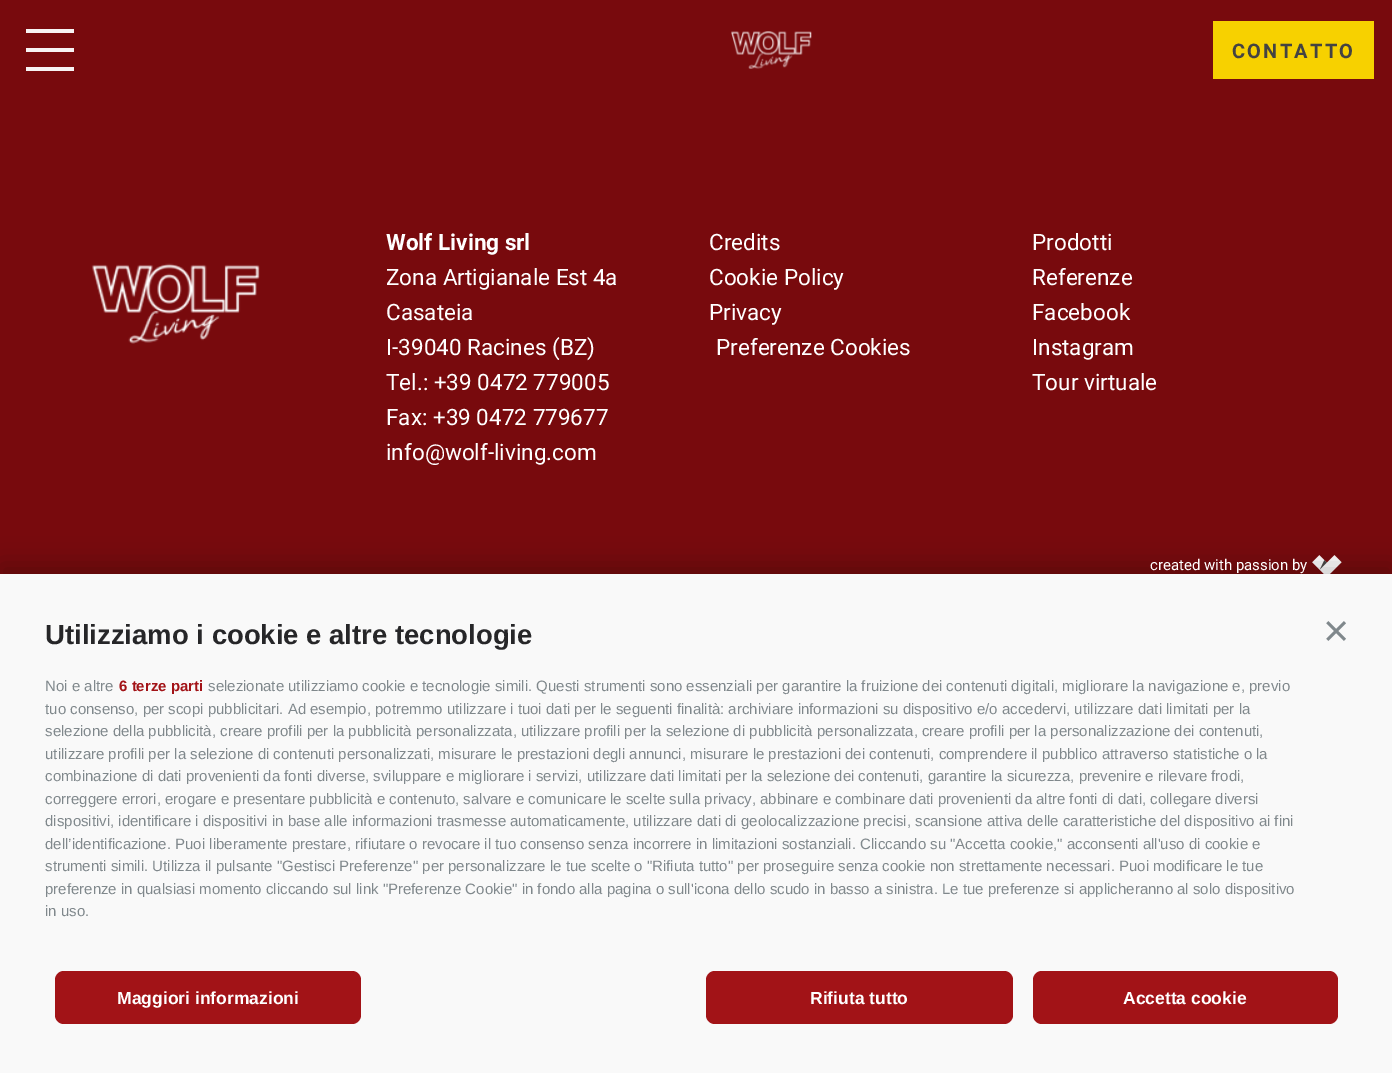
%!PS
<< /PageSize [1392 1073] /PageUsesTransparency true >> setpagedevice
/rgb { 3 { 255 div 3 1 roll } repeat setrgbcolor } def
/font { [ exch dup neg 0 0 3 -1 roll 0 0 ] selectfont } def
/text { moveto show } def
/alpha { dup .setfillconstantalpha .setstrokeconstantalpha } def
/roundrect { 5 dict begin { /r /h /w /y /x } { exch def } forall
  x r add y moveto x w add y 2 copy h add r arct x w add y h add x 1 index r arct
  x y h add x y r arct x y 2 copy exch w add exch r arct closepath end } def
/shadow { 12 dict begin { /a /b /q /h /w /y /x } { exch def } forall gsave /was 0 def
  9 -2 -9 { dup b mul 4 div /e exch def 1 sub .425 mul 2.718 exch exp 1 add a .99 .min exch div /now exch def
    1 1 now sub 1 was sub div sub alpha /was now def
    w h .min e 2 mul add 0 gt { x e sub y e sub w e 2 mul add h e 2 mul add
      q e add b .6 mul add w h .min 2 div e add .min 0 .max roundrect fill } if } for grestore end } def
/picture { 5 dict begin { /h /w /y /x /name } { exch def } forall
  gsave x y translate w h scale
  w h 8 [w 0 0 h 0 0] name (r) file false 3 colorimage grestore end } def
0 .pushpdf14devicefilter
0 1073 translate 1 -1 scale
4 setmiterlimit
120 10 13 rgb
0 0 1392 1073 rectfill
248 243 243 rgb
26 29 48 4 rectfill
26 48 48 4 rectfill
26 67 48 4 rectfill
(img_01.rgb) 731 31 81 38 picture
247 209 0 rgb
1213 21 161 58 rectfill
(img_02.rgb) 91 263 169 81 picture
(img_03.rgb) 1312 555 30 19 picture
0 0 0 rgb
0 564 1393 500 0 12.5 0.2 shadow
249 249 249 rgb
0 574 1392 499 rectfill
162 19 23 rgb
55 971 306 53 9 roundrect fill
706 971 307 53 9 roundrect fill
1033 971 305 53 9 roundrect fill
/Roboto-Bold 20 font
68 67 66 rgb
1232 58 moveto 2.25 0 (CONTATTO) ashow
/Roboto-Bold 22.5 font
255 255 255 rgb
(Wolf Living srl) 386 250 text
/Roboto-Regular 22.5 font
(Zona Artigianale Est 4a) 386 285 text
(Casateia) 386 320 text
(I-39040 Racines \(BZ\)) 386 355 text
(Tel.: +39 0472 779005) 386 390 text
(Fax: +39 0472 779677) 386 425 text
(info@wolf-living.com) 386 460 text
(Credits) 709 250 text
(Cookie Policy) 709 285 text
(Privacy) 709 320 text
(Preferenze Cookies) 716 355 text
(Prodotti) 1032 250 text
(Referenze) 1032 285 text
(Facebook) 1032 320 text
(Instagram) 1032 355 text
(Tour virtuale) 1032 390 text
/Roboto-Regular 15 font
(created with passion by) 1150 570 text
/LiberationSans-Bold 27.5 font
38 38 40 rgb
(Utilizziamo i cookie e altre tecnologie) 45 644 text
/LiberationSans-Regular 45 font
128 136 140 rgb
(×) 1323 646 text
/LiberationSans-Regular 15 font
(Noi e altre) 45 691 text
/LiberationSans-Bold 15 font
162 19 23 rgb
(6 terze parti) 119 691 text
/LiberationSans-Regular 15 font
128 136 140 rgb
(selezionate utilizziamo cookie e tecnologie simili. Questi strumenti sono essenziali per garantire la fruizione dei contenuti digitali, migliorare la navigazione e, previo) 208 691 text
(tuo consenso, per scopi pubblicitari. Ad esempio, potremmo utilizzare i tuoi dati per le seguenti finalità: archiviare informazioni su dispositivo e/o accedervi, utilizzare dati limitati per la) 45 714 text
(selezione della pubblicità, creare profili per la pubblicità personalizzata, utilizzare profili per la selezione di pubblicità personalizzata, creare profili per la personalizzazione dei contenuti,) 45 736 text
(utilizzare profili per la selezione di contenuti personalizzati, misurare le prestazioni degli annunci, misurare le prestazioni dei contenuti, comprendere il pubblico attraverso statistiche o la) 45 759 text
(combinazione di dati provenienti da fonti diverse, sviluppare e migliorare i servizi, utilizzare dati limitati per la selezione dei contenuti, garantire la sicurezza, prevenire e rilevare frodi,) 45 781 text
(correggere errori, erogare e presentare pubblicità e contenuto, salvare e comunicare le scelte sulla privacy, abbinare e combinare dati provenienti da altre fonti di dati, collegare diversi) 45 804 text
(dispositivi, identificare i dispositivi in base alle informazioni trasmesse automaticamente, utilizzare dati di geolocalizzazione precisi, scansione attiva delle caratteristiche del dispositivo ai fini) 45 826 text
(dell’identificazione. Puoi liberamente prestare, rifiutare o revocare il tuo consenso senza incorrere in limitazioni sostanziali. Cliccando su "Accetta cookie," acconsenti all'uso di cookie e) 45 849 text
(strumenti simili. Utilizza il pulsante "Gestisci Preferenze" per personalizzare le tue scelte o "Rifiuta tutto" per proseguire senza cookie non strettamente necessari. Puoi modificare le tue) 45 871 text
(preferenze in qualsiasi momento cliccando sul link "Preferenze Cookie" in fondo alla pagina o sull'icona dello scudo in basso a sinistra. Le tue preferenze si applicheranno al solo dispositivo) 45 894 text
(in uso.) 45 916 text
/LiberationSans-Bold 17.5 font
255 255 255 rgb
(Maggiori informazioni) 117 1004 text
(Rifiuta tutto) 810 1004 text
(Accetta cookie) 1123 1004 text
.poppdf14devicefilter showpage
